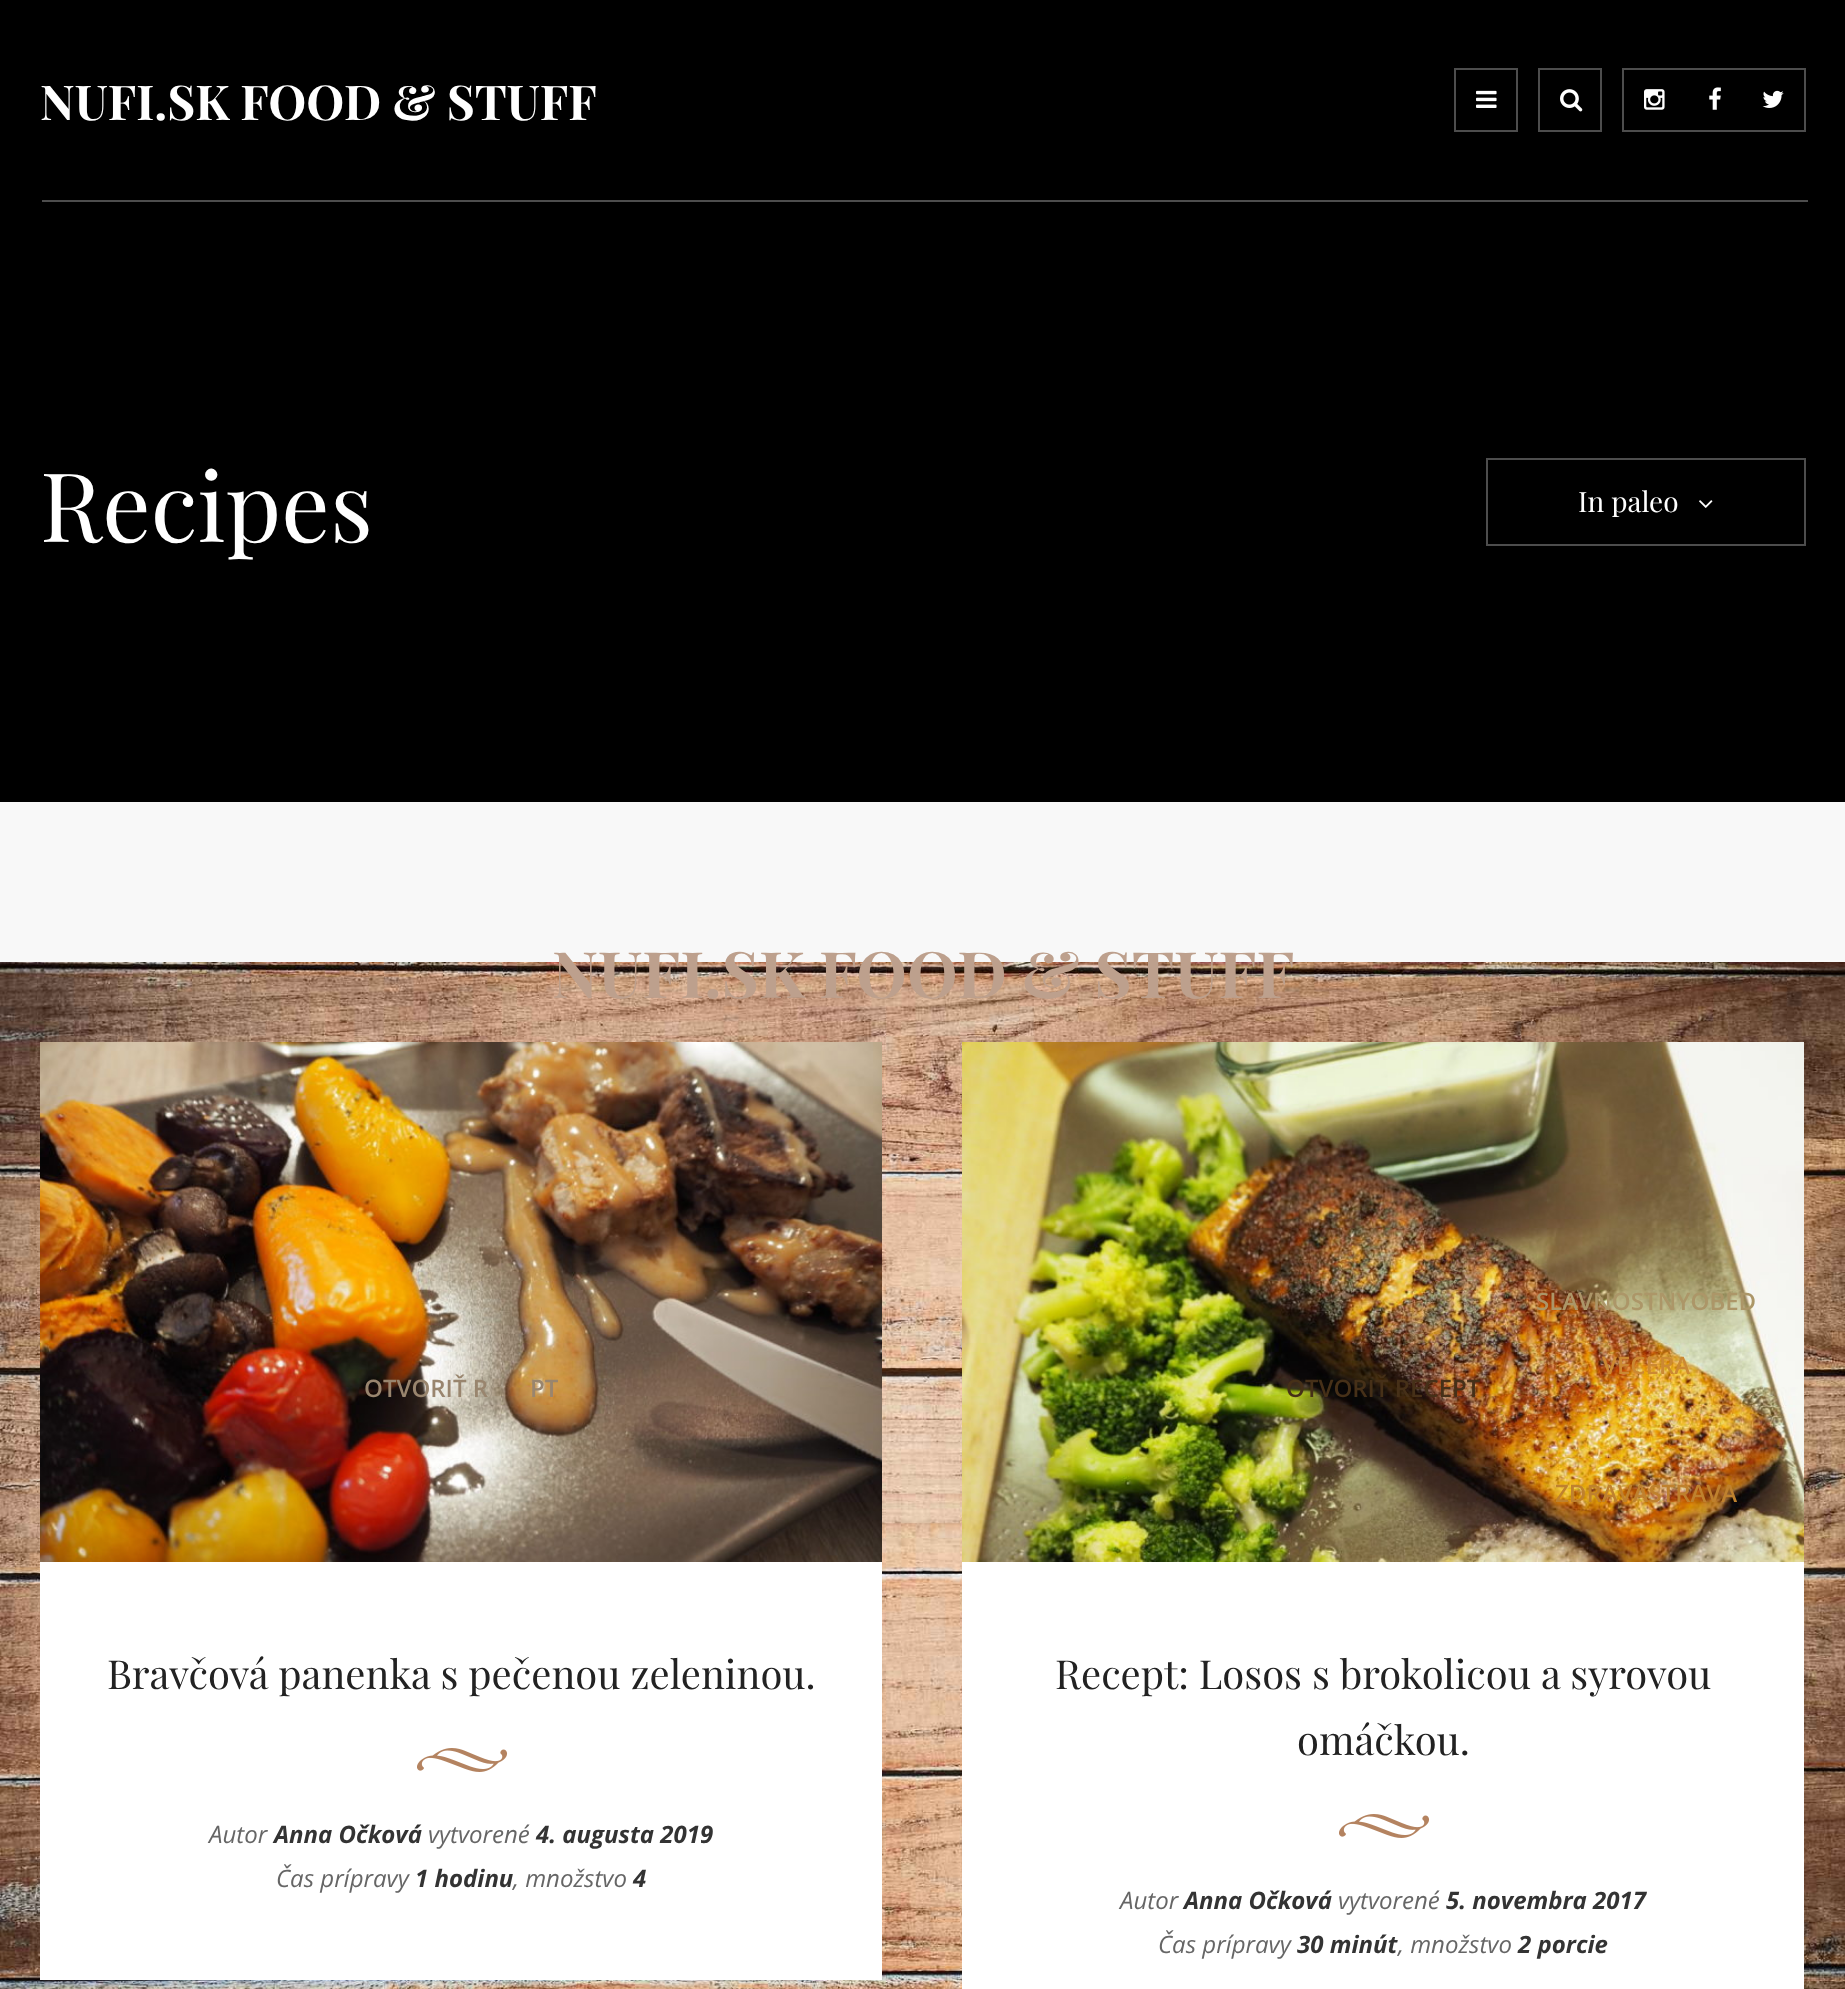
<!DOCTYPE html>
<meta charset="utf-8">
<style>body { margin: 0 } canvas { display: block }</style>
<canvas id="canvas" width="1845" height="1989"></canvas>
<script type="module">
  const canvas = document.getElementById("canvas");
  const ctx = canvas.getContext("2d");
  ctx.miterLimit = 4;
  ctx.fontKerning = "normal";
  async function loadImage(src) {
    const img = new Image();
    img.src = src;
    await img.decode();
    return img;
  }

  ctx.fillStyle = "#f8f8f8";
  ctx.fillRect(0, 0, 1845, 1989);
  ctx.fillStyle = "#000000";
  ctx.fillRect(0, 0, 1845, 802);
  ctx.font = "bold 48px Playfair Display";
  ctx.fillStyle = "#ffffff";
  ctx.fillText("NUFI.SK FOOD & STUFF", 40, 120);
  ctx.strokeStyle = "#4d4d4d";
  ctx.lineWidth = 2;
  ctx.strokeRect(1455, 69, 62, 62);
  ctx.drawImage(await loadImage("img1.png"), 1476, 90, 21, 18);
  ctx.strokeRect(1539, 69, 62, 62);
  ctx.drawImage(await loadImage("img2.png"), 1560, 89, 23, 23);
  ctx.strokeRect(1623, 69, 182, 62);
  ctx.drawImage(await loadImage("img3.png"), 1644, 89, 21, 21);
  ctx.drawImage(await loadImage("img4.png"), 1709, 87, 12, 23);
  ctx.drawImage(await loadImage("img5.png"), 1762, 90, 22, 18);
  ctx.fillStyle = "#4d4d4d";
  ctx.fillRect(42, 200, 1766, 2);
  ctx.font = "96px Playfair Display";
  ctx.fillStyle = "#ffffff";
  ctx.fillText("Recipes", 40, 542);
  ctx.strokeRect(1487, 459, 318, 86);
  ctx.font = "28px Playfair Display";
  ctx.fillText("In paleo", 1578, 512);
  ctx.drawImage(await loadImage("img6.png"), 1699, 500, 14, 8);
  ctx.drawImage(await loadImage("img7.png"), 0, 962, 1845, 1027);
  ctx.drawImage(await loadImage("img10.png"), 962, 1042, 842, 520);
  ctx.font = "600 24px Open Sans";
  ctx.fillStyle = "#ac9668";
  ctx.fillText("SLAVNOSTNYOBED", 1536, 1310);
  ctx.fillStyle = "#cc8932";
  ctx.fillText("VECERA", 1602, 1374);
  ctx.fillStyle = "#bf812e";
  ctx.fillText("ZDRAVASTRAVA", 1555, 1502);
  ctx.fillStyle = "#ffffff";
  ctx.fillRect(40, 1562, 842, 418);
  ctx.drawImage(await loadImage("img8.png"), 40, 1042, 842, 520);
  ctx.fillStyle = "#99856e";
  ctx.fillText("OTVORIŤ R", 364, 1397);
  ctx.fillText("PT", 530, 1397);
  ctx.font = "40px Playfair Display";
  ctx.fillStyle = "#222222";
  ctx.fillText("Bravčová panenka s pečenou zeleninou.", 107, 1689);
  ctx.drawImage(await loadImage("img9.png"), 417, 1748, 91, 24);
  ctx.font = "italic 24px Open Sans";
  ctx.fillStyle = "#666666";
  ctx.fillText("Autor", 209, 1843);
  ctx.font = "italic bold 24px Open Sans";
  ctx.fillStyle = "#333333";
  ctx.fillText("Anna Očková", 274, 1843);
  ctx.font = "italic 24px Open Sans";
  ctx.fillStyle = "#666666";
  ctx.fillText("vytvorené", 428, 1843);
  ctx.font = "italic bold 24px Open Sans";
  ctx.fillStyle = "#333333";
  ctx.fillText("4. augusta 2019", 536, 1843);
  ctx.font = "italic 24px Open Sans";
  ctx.fillStyle = "#666666";
  ctx.fillText("Čas prípravy", 276, 1887);
  ctx.font = "italic bold 24px Open Sans";
  ctx.fillStyle = "#333333";
  ctx.fillText("1 hodinu", 415, 1887);
  ctx.font = "italic 24px Open Sans";
  ctx.fillStyle = "#666666";
  ctx.fillText(", množstvo", 513, 1887);
  ctx.font = "italic bold 24px Open Sans";
  ctx.fillStyle = "#333333";
  ctx.fillText("4", 633, 1887);
  ctx.fillStyle = "#ffffff";
  ctx.fillRect(962, 1562, 842, 427);
  ctx.font = "600 24px Open Sans";
  ctx.fillStyle = "#463018";
  ctx.fillText("OTVORIŤ RECEPT", 1286, 1397);
  ctx.font = "40px Playfair Display";
  ctx.fillStyle = "#222222";
  ctx.fillText("Recept: Losos s brokolicou a syrovou", 1055, 1689);
  ctx.fillText("omáčkou.", 1297, 1755);
  ctx.drawImage(await loadImage("img9.png"), 1339, 1814, 91, 24);
  ctx.font = "italic 24px Open Sans";
  ctx.fillStyle = "#666666";
  ctx.fillText("Autor", 1120, 1909);
  ctx.font = "italic bold 24px Open Sans";
  ctx.fillStyle = "#333333";
  ctx.fillText("Anna Očková", 1184, 1909);
  ctx.font = "italic 24px Open Sans";
  ctx.fillStyle = "#666666";
  ctx.fillText("vytvorené", 1338, 1909);
  ctx.font = "italic bold 24px Open Sans";
  ctx.fillStyle = "#333333";
  ctx.fillText("5. novembra 2017", 1446, 1909);
  ctx.font = "italic 24px Open Sans";
  ctx.fillStyle = "#666666";
  ctx.fillText("Čas prípravy", 1158, 1953);
  ctx.font = "italic bold 24px Open Sans";
  ctx.fillStyle = "#333333";
  ctx.fillText("30 minút", 1297, 1953);
  ctx.font = "italic 24px Open Sans";
  ctx.fillStyle = "#666666";
  ctx.fillText(", množstvo", 1398, 1953);
  ctx.font = "italic bold 24px Open Sans";
  ctx.fillStyle = "#333333";
  ctx.fillText("2 porcie", 1518, 1953);
  ctx.font = "bold 64px Playfair Display";
  ctx.fillStyle = "#bda08d";
  ctx.fillText("NUFI.SK FOOD & STUFF", 552, 998);
</script>
